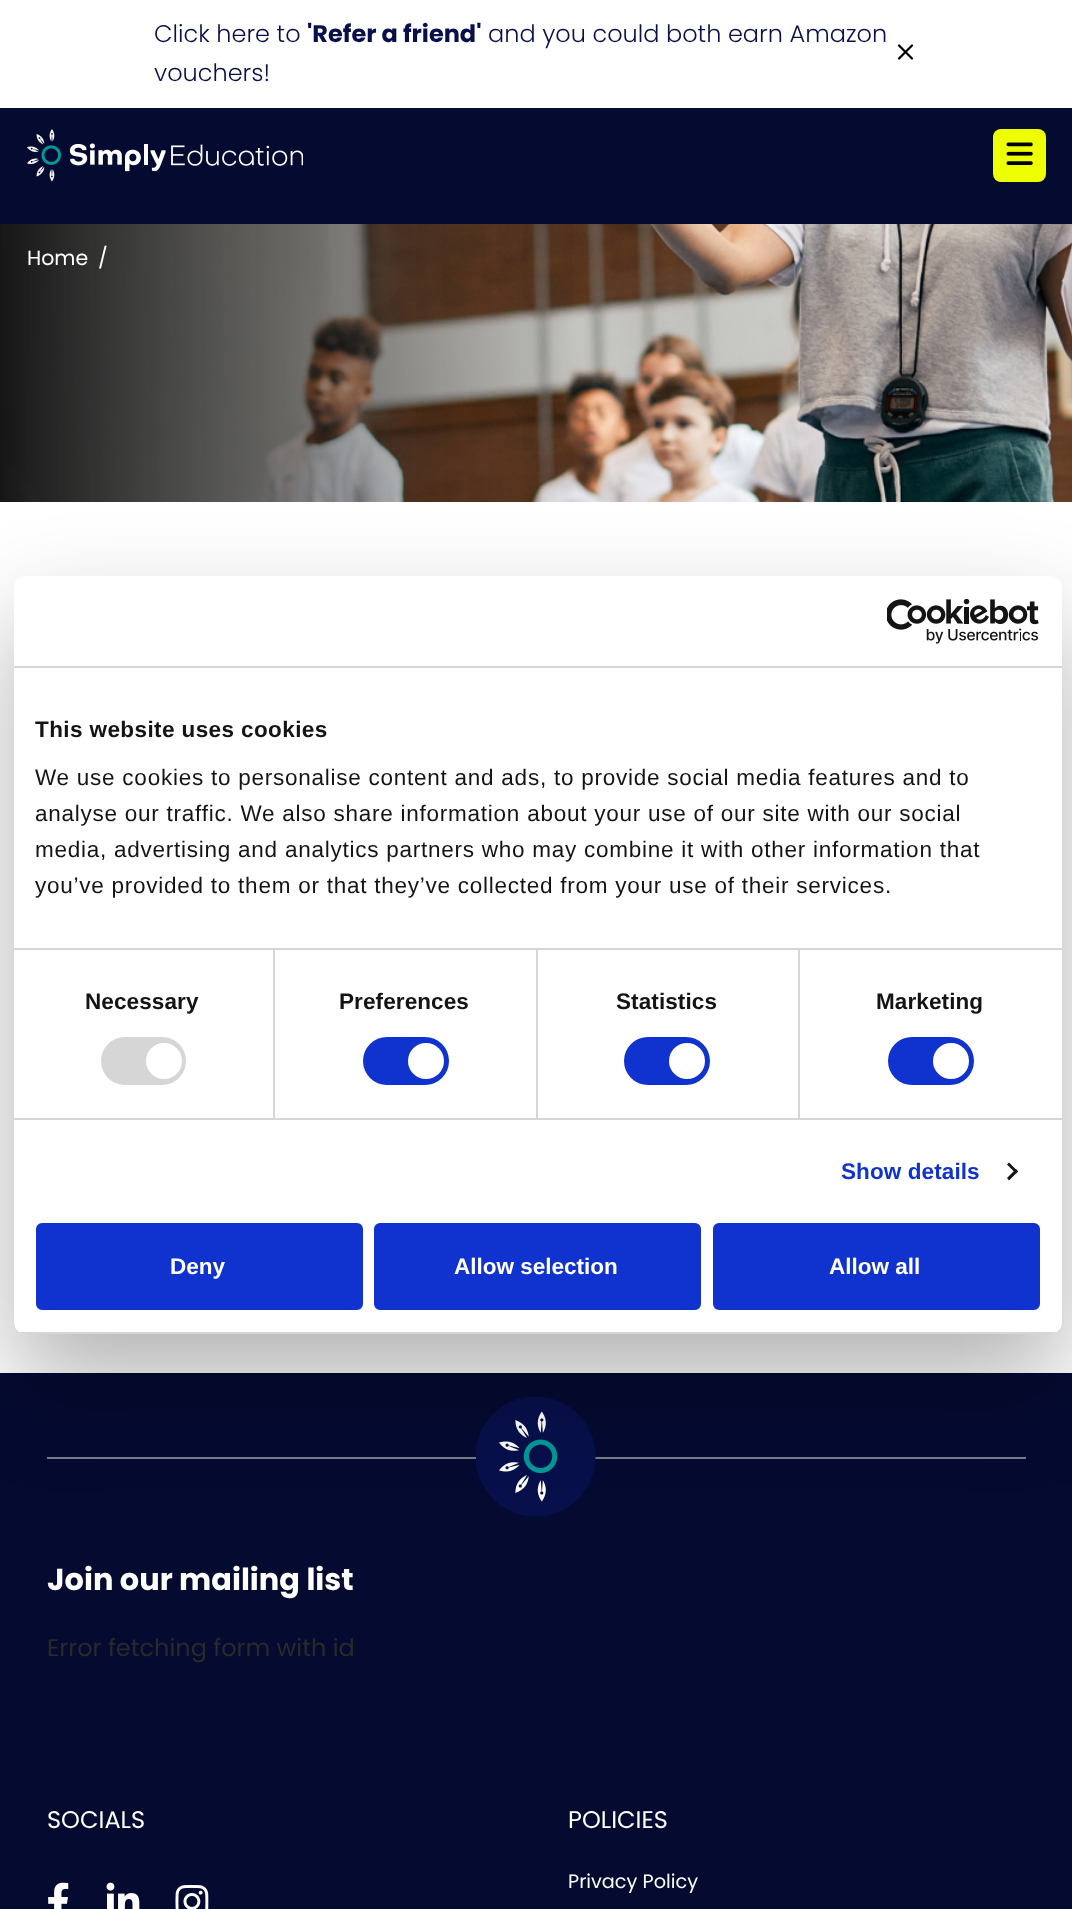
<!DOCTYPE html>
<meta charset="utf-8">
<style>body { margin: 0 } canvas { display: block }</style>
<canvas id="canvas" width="1072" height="1909"></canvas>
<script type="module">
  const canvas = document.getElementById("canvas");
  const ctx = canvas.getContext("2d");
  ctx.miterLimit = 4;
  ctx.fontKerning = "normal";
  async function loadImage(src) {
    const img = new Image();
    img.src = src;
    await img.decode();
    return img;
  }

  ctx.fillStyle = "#ffffff";
  ctx.fillRect(0, 0, 1072, 1909);
  ctx.fillStyle = "#050a31";
  ctx.fillRect(0, 108, 1072, 116);
  ctx.font = "300 24px Poppins";
  ctx.fillStyle = "#08104c";
  ctx.fillText("Click here to", 154, 42);
  ctx.font = "bold 24px Poppins";
  ctx.fillText("'Refer a friend'", 307, 42);
  ctx.font = "300 24px Poppins";
  ctx.fillText("and you could both earn Amazon", 488, 42);
  ctx.fillText("vouchers!", 154, 81);
  ctx.beginPath();
  ctx.moveTo(912, 45.5);
  ctx.lineTo(899, 58.5);
  ctx.moveTo(899, 45.5);
  ctx.lineTo(912, 58.5);
  ctx.strokeStyle = "#000000";
  ctx.lineWidth = 2.2;
  ctx.lineCap = "round";
  ctx.lineJoin = "round";
  ctx.stroke();
  ctx.drawImage(await loadImage("img1.png"), 27, 129, 276, 53);
  ctx.fillStyle = "#edff00";
  ctx.beginPath();
  ctx.roundRect(993, 129, 53, 53, 8);
  ctx.fill();
  ctx.drawImage(await loadImage("img2.png"), 1006, 142, 27, 23);
  ctx.drawImage(await loadImage("img3.png"), 0, 224, 1072, 278);
  ctx.font = "20.5px Poppins";
  ctx.fillStyle = "#ffffff";
  ctx.fillText("Home", 27, 265);
  ctx.fillText("/", 98, 265);
  ctx.fillStyle = "#050a31";
  ctx.fillRect(0, 1373, 1072, 536);
  ctx.fillStyle = "#787b8e";
  ctx.fillRect(47, 1457, 979, 2);
  ctx.drawImage(await loadImage("img4.png"), 476, 1397, 120, 120);
  ctx.font = "bold 30.4px Poppins";
  ctx.fillStyle = "#ffffff";
  ctx.fillText("Join our mailing list", 47, 1590);
  ctx.font = "24px Poppins";
  ctx.fillStyle = "#2a2a2a";
  ctx.fillText("Error fetching form with id", 47, 1656);
  ctx.fillStyle = "#ffffff";
  ctx.fillText("SOCIALS", 47, 1828);
  ctx.drawImage(await loadImage("img5.png"), 48, 1882, 21, 27);
  ctx.drawImage(await loadImage("img6.png"), 106, 1882, 34, 27);
  ctx.drawImage(await loadImage("img7.png"), 175, 1885, 34, 24);
  ctx.fillText("POLICIES", 568, 1828);
  ctx.font = "19.25px Poppins";
  ctx.fillText("Privacy Policy", 568, 1888);
  ctx.fillStyle = "rgba(0, 0, 0, 0.3)";
  ctx.filter = "blur(51px)";
  ctx.beginPath();
  ctx.roundRect(14, 624, 1048, 758, 12);
  ctx.fill();
  ctx.filter = "none";
  ctx.fillStyle = "#ffffff";
  ctx.beginPath();
  ctx.roundRect(14, 576, 1048, 758, 12);
  ctx.fill();
  ctx.fillStyle = "#d6d6d6";
  ctx.fillRect(14, 666, 1048, 2);
  ctx.drawImage(await loadImage("img8.png"), 887, 599, 152, 45);
  ctx.fillRect(14, 948, 1048, 2);
  ctx.letterSpacing = "0.4px";
  ctx.font = "bold 22.5px Liberation Sans";
  ctx.fillStyle = "#141414";
  ctx.fillText("This website uses cookies", 35, 737);
  ctx.letterSpacing = "0.75px";
  ctx.font = "22.5px Liberation Sans";
  ctx.fillText("We use cookies to personalise content and ads, to provide social media features and to", 35, 785);
  ctx.fillText("analyse our traffic. We also share information about your use of our site with our social", 35, 821);
  ctx.fillText("media, advertising and analytics partners who may combine it with other information that", 35, 857);
  ctx.fillText("you’ve provided to them or that they’ve collected from your use of their services.", 35, 893);
  ctx.fillStyle = "#d6d6d6";
  ctx.fillRect(14, 1118, 1048, 2);
  ctx.fillRect(273, 950, 2, 168);
  ctx.letterSpacing = "0.1px";
  ctx.font = "bold 22.5px Liberation Sans";
  ctx.fillStyle = "#141414";
  ctx.fillText("Necessary", 85, 1009);
  ctx.fillStyle = "#d6d6d6";
  ctx.beginPath();
  ctx.roundRect(101, 1037, 85, 48, 24);
  ctx.fill();
  ctx.fillStyle = "#ffffff";
  ctx.beginPath();
  ctx.arc(164, 1061, 18, 0, Math.PI * 2);
  ctx.fill();
  ctx.fillStyle = "#d6d6d6";
  ctx.fillRect(536, 950, 2, 168);
  ctx.fillStyle = "#141414";
  ctx.fillText("Preferences", 339, 1009);
  ctx.fillStyle = "#1032cf";
  ctx.beginPath();
  ctx.roundRect(363, 1037, 86, 48, 24);
  ctx.fill();
  ctx.fillStyle = "#ffffff";
  ctx.beginPath();
  ctx.arc(426, 1061, 18, 0, Math.PI * 2);
  ctx.fill();
  ctx.fillStyle = "#d6d6d6";
  ctx.fillRect(798, 950, 2, 168);
  ctx.fillStyle = "#141414";
  ctx.fillText("Statistics", 616, 1009);
  ctx.fillStyle = "#1032cf";
  ctx.beginPath();
  ctx.roundRect(624, 1037, 86, 48, 24);
  ctx.fill();
  ctx.fillStyle = "#ffffff";
  ctx.beginPath();
  ctx.arc(687, 1061, 18, 0, Math.PI * 2);
  ctx.fill();
  ctx.fillStyle = "#141414";
  ctx.fillText("Marketing", 876, 1009);
  ctx.fillStyle = "#1032cf";
  ctx.beginPath();
  ctx.roundRect(888, 1037, 86, 48, 24);
  ctx.fill();
  ctx.fillStyle = "#ffffff";
  ctx.beginPath();
  ctx.arc(951, 1061, 18, 0, Math.PI * 2);
  ctx.fill();
  ctx.fillStyle = "#1032cf";
  ctx.fillText("Show details", 841, 1179);
  ctx.fillStyle = "#141414";
  ctx.beginPath();
  ctx.moveTo(1009, 1162.5);
  ctx.lineTo(1018, 1171.5);
  ctx.lineTo(1016, 1173.5);
  ctx.lineTo(1007, 1164.5);
  ctx.closePath();
  ctx.fill();
  ctx.beginPath();
  ctx.moveTo(1016, 1169);
  ctx.lineTo(1018, 1171.5);
  ctx.lineTo(1009, 1180.5);
  ctx.lineTo(1007, 1178);
  ctx.closePath();
  ctx.fill();
  ctx.save();
  ctx.beginPath();
  ctx.roundRect(14, 576, 1048, 758, 12);
  ctx.clip();
  ctx.fillStyle = "#d6d6d6";
  ctx.fillRect(14, 1332, 1048, 2);
  ctx.restore();
  ctx.fillStyle = "#1032cf";
  ctx.beginPath();
  ctx.roundRect(37.5, 1224.5, 324, 84, 4.5);
  ctx.fill();
  ctx.strokeStyle = "#1032cf";
  ctx.lineWidth = 3;
  ctx.lineJoin = "miter";
  ctx.stroke();
  ctx.letterSpacing = "0px";
  ctx.fillStyle = "#ffffff";
  ctx.fillText("Deny", 170, 1274);
  ctx.fillStyle = "#1032cf";
  ctx.beginPath();
  ctx.roundRect(375.5, 1224.5, 324, 84, 4.5);
  ctx.fill();
  ctx.stroke();
  ctx.fillStyle = "#ffffff";
  ctx.fillText("Allow selection", 454, 1274);
  ctx.fillStyle = "#1032cf";
  ctx.beginPath();
  ctx.roundRect(714.5, 1224.5, 324, 84, 4.5);
  ctx.fill();
  ctx.stroke();
  ctx.fillStyle = "#ffffff";
  ctx.fillText("Allow all", 829, 1274);
</script>
